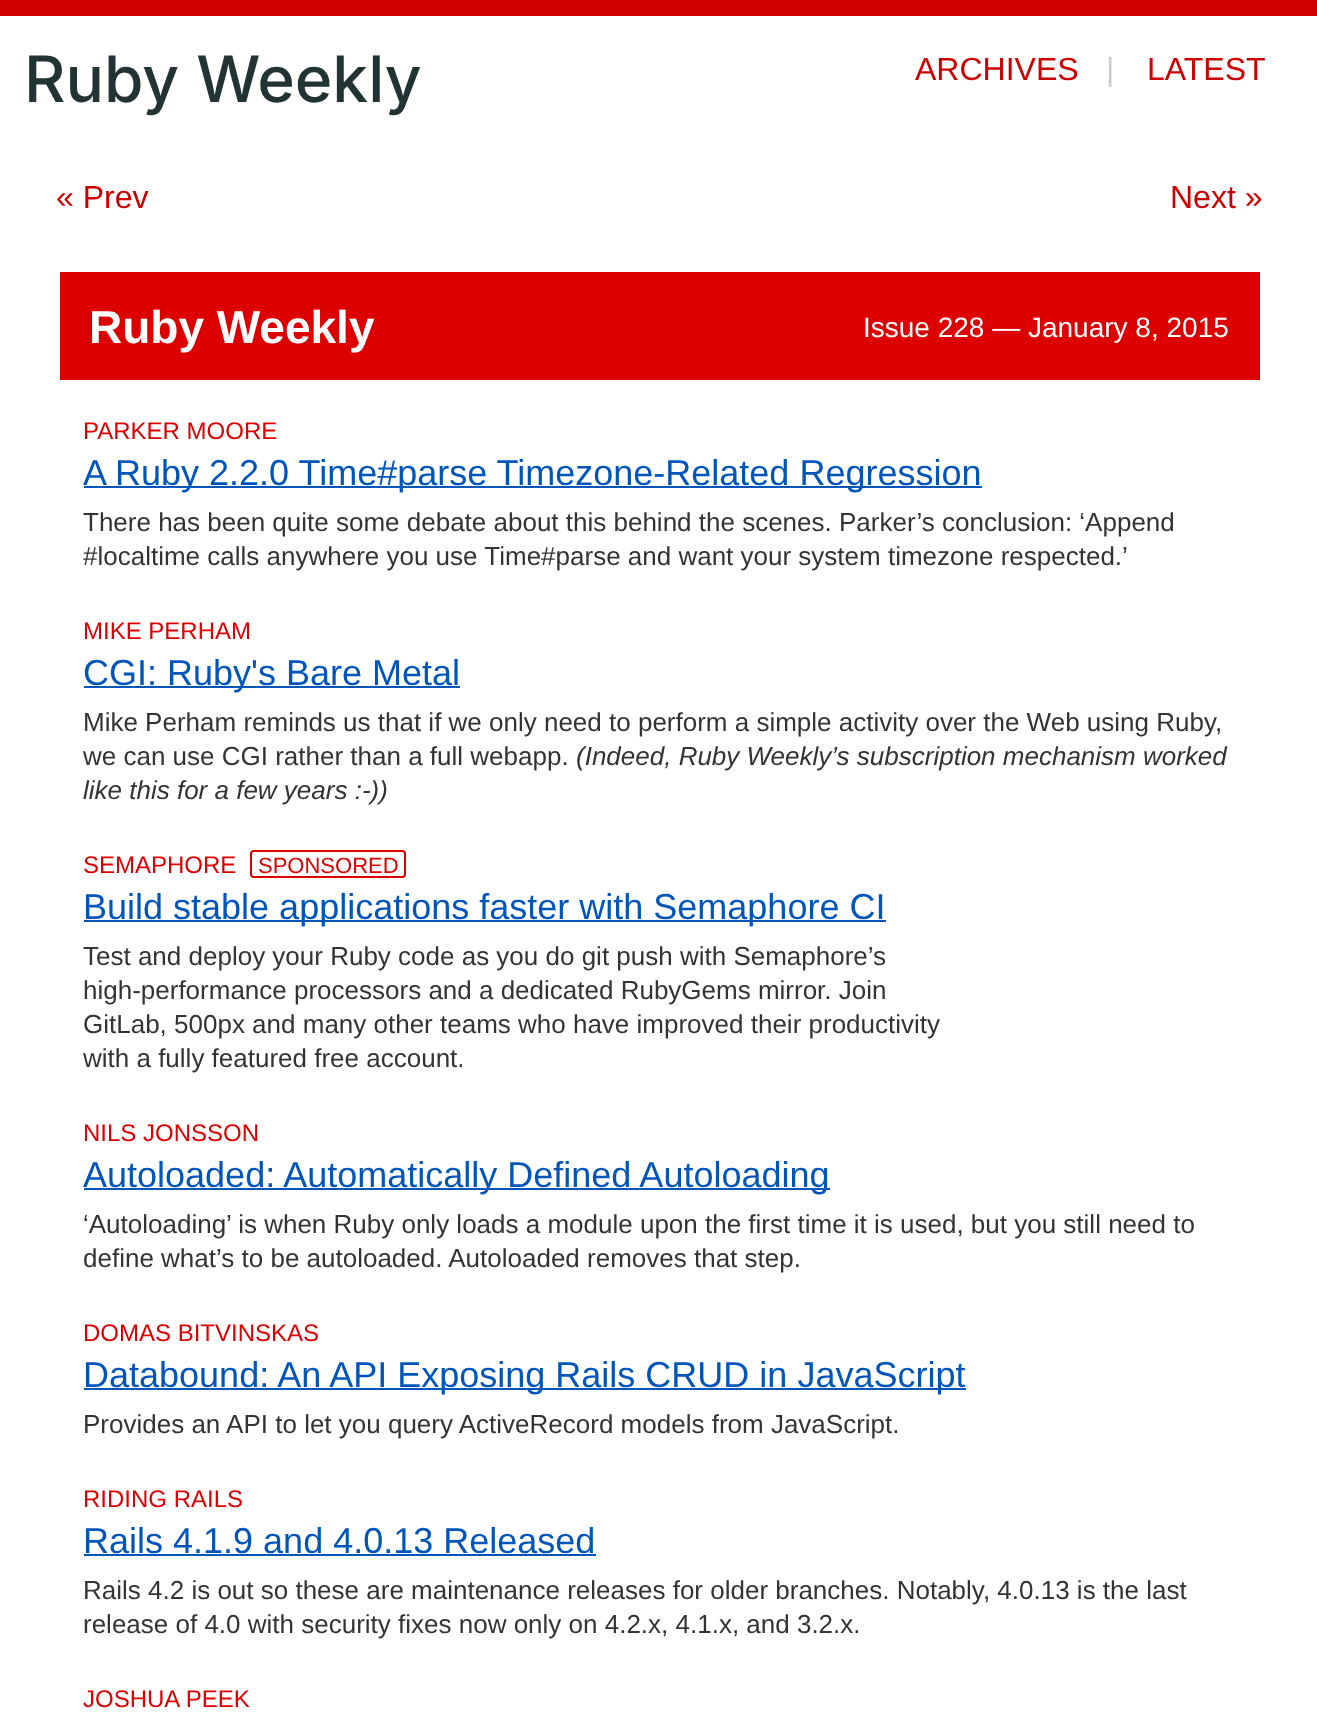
<!DOCTYPE html>
<meta charset="utf-8">
<style>body { margin: 0 } canvas { display: block }</style>
<canvas id="canvas" width="1317" height="1727"></canvas>
<script type="module">
  const canvas = document.getElementById("canvas");
  const ctx = canvas.getContext("2d");
  ctx.miterLimit = 4;
  ctx.fontKerning = "normal";

  ctx.fillStyle = "#ffffff";
  ctx.fillRect(0, 0, 1317, 1727);
  ctx.fillStyle = "#cc0000";
  ctx.fillRect(0, 0, 1317, 16);
  ctx.font = "500 64px Inter";
  ctx.fillStyle = "#223333";
  ctx.fillText("Ruby Weekly", 24, 102);
  ctx.font = "32px Liberation Sans";
  ctx.fillStyle = "#cc0000";
  ctx.fillText("ARCHIVES", 915, 80);
  ctx.fillStyle = "#cccccc";
  ctx.fillText("|", 1106, 80);
  ctx.fillStyle = "#cc0000";
  ctx.fillText("LATEST", 1147, 80);
  ctx.fillText("« Prev", 56, 208);
  ctx.fillText("Next »", 1170, 208);
  ctx.fillStyle = "#dd0000";
  ctx.fillRect(60, 272, 1200, 108);
  ctx.font = "bold 46px Liberation Sans";
  ctx.fillStyle = "#ffffff";
  ctx.fillText("Ruby Weekly", 89, 343);
  ctx.font = "28px Liberation Sans";
  ctx.fillText("Issue 228 — January 8, 2015", 863, 337);
  ctx.font = "24px Liberation Sans";
  ctx.fillStyle = "#dd0000";
  ctx.fillText("PARKER MOORE", 83, 439);
  ctx.fillStyle = "#0055bb";
  ctx.fillRect(84, 486, 898, 2);
  ctx.font = "36px Liberation Sans";
  ctx.fillText("A Ruby 2.2.0 Time#parse Timezone-Related Regression", 83, 485);
  ctx.font = "26px Liberation Sans";
  ctx.fillStyle = "#333333";
  ctx.fillText("There has been quite some debate about this behind the scenes. Parker’s conclusion: ‘Append", 83, 531);
  ctx.fillText("#localtime calls anywhere you use Time#parse and want your system timezone respected.’", 83, 565);
  ctx.font = "24px Liberation Sans";
  ctx.fillStyle = "#dd0000";
  ctx.fillText("MIKE PERHAM", 83, 639);
  ctx.fillStyle = "#0055bb";
  ctx.fillRect(84, 686, 376, 2);
  ctx.font = "36px Liberation Sans";
  ctx.fillText("CGI: Ruby's Bare Metal", 83, 685);
  ctx.font = "26px Liberation Sans";
  ctx.fillStyle = "#333333";
  ctx.fillText("Mike Perham reminds us that if we only need to perform a simple activity over the Web using Ruby,", 83, 731);
  ctx.fillText("we can use CGI rather than a full webapp.", 83, 765);
  ctx.font = "italic 26px Liberation Sans";
  ctx.fillText("(Indeed, Ruby Weekly’s subscription mechanism worked", 576, 765);
  ctx.fillText("like this for a few years :-))", 83, 799);
  ctx.font = "24px Liberation Sans";
  ctx.fillStyle = "#dd0000";
  ctx.fillText("SEMAPHORE", 83, 873);
  ctx.beginPath();
  ctx.roundRect(251, 851, 154, 26, 3);
  ctx.strokeStyle = "#dd0000";
  ctx.lineWidth = 2;
  ctx.stroke();
  ctx.font = "22px Liberation Sans";
  ctx.fillText("SPONSORED", 258, 873);
  ctx.fillStyle = "#0055bb";
  ctx.fillRect(84, 920, 802, 2);
  ctx.font = "36px Liberation Sans";
  ctx.fillText("Build stable applications faster with Semaphore CI", 83, 919);
  ctx.font = "26px Liberation Sans";
  ctx.fillStyle = "#333333";
  ctx.fillText("Test and deploy your Ruby code as you do git push with Semaphore’s", 83, 965);
  ctx.fillText("high-performance processors and a dedicated RubyGems mirror. Join", 83, 999);
  ctx.fillText("GitLab, 500px and many other teams who have improved their productivity", 83, 1033);
  ctx.fillText("with a fully featured free account.", 83, 1067);
  ctx.font = "24px Liberation Sans";
  ctx.fillStyle = "#dd0000";
  ctx.fillText("NILS JONSSON", 83, 1141);
  ctx.fillStyle = "#0055bb";
  ctx.fillRect(84, 1188, 746, 2);
  ctx.font = "36px Liberation Sans";
  ctx.fillText("Autoloaded: Automatically Defined Autoloading", 83, 1187);
  ctx.font = "26px Liberation Sans";
  ctx.fillStyle = "#333333";
  ctx.fillText("‘Autoloading’ is when Ruby only loads a module upon the first time it is used, but you still need to", 83, 1233);
  ctx.fillText("define what’s to be autoloaded. Autoloaded removes that step.", 83, 1267);
  ctx.font = "24px Liberation Sans";
  ctx.fillStyle = "#dd0000";
  ctx.fillText("DOMAS BITVINSKAS", 83, 1341);
  ctx.fillStyle = "#0055bb";
  ctx.fillRect(84, 1388, 882, 2);
  ctx.font = "36px Liberation Sans";
  ctx.fillText("Databound: An API Exposing Rails CRUD in JavaScript", 83, 1387);
  ctx.font = "26px Liberation Sans";
  ctx.fillStyle = "#333333";
  ctx.fillText("Provides an API to let you query ActiveRecord models from JavaScript.", 83, 1433);
  ctx.font = "24px Liberation Sans";
  ctx.fillStyle = "#dd0000";
  ctx.fillText("RIDING RAILS", 83, 1507);
  ctx.font = "36px Liberation Sans";
  ctx.fillStyle = "#0055bb";
  ctx.fillText("Rails 4.1.9 and 4.0.13 Released", 83, 1553);
  ctx.fillRect(84, 1554, 512, 2);
  ctx.font = "26px Liberation Sans";
  ctx.fillStyle = "#333333";
  ctx.fillText("Rails 4.2 is out so these are maintenance releases for older branches. Notably, 4.0.13 is the last", 83, 1599);
  ctx.fillText("release of 4.0 with security fixes now only on 4.2.x, 4.1.x, and 3.2.x.", 83, 1633);
  ctx.font = "24px Liberation Sans";
  ctx.fillStyle = "#dd0000";
  ctx.fillText("JOSHUA PEEK", 83, 1707);
</script>
